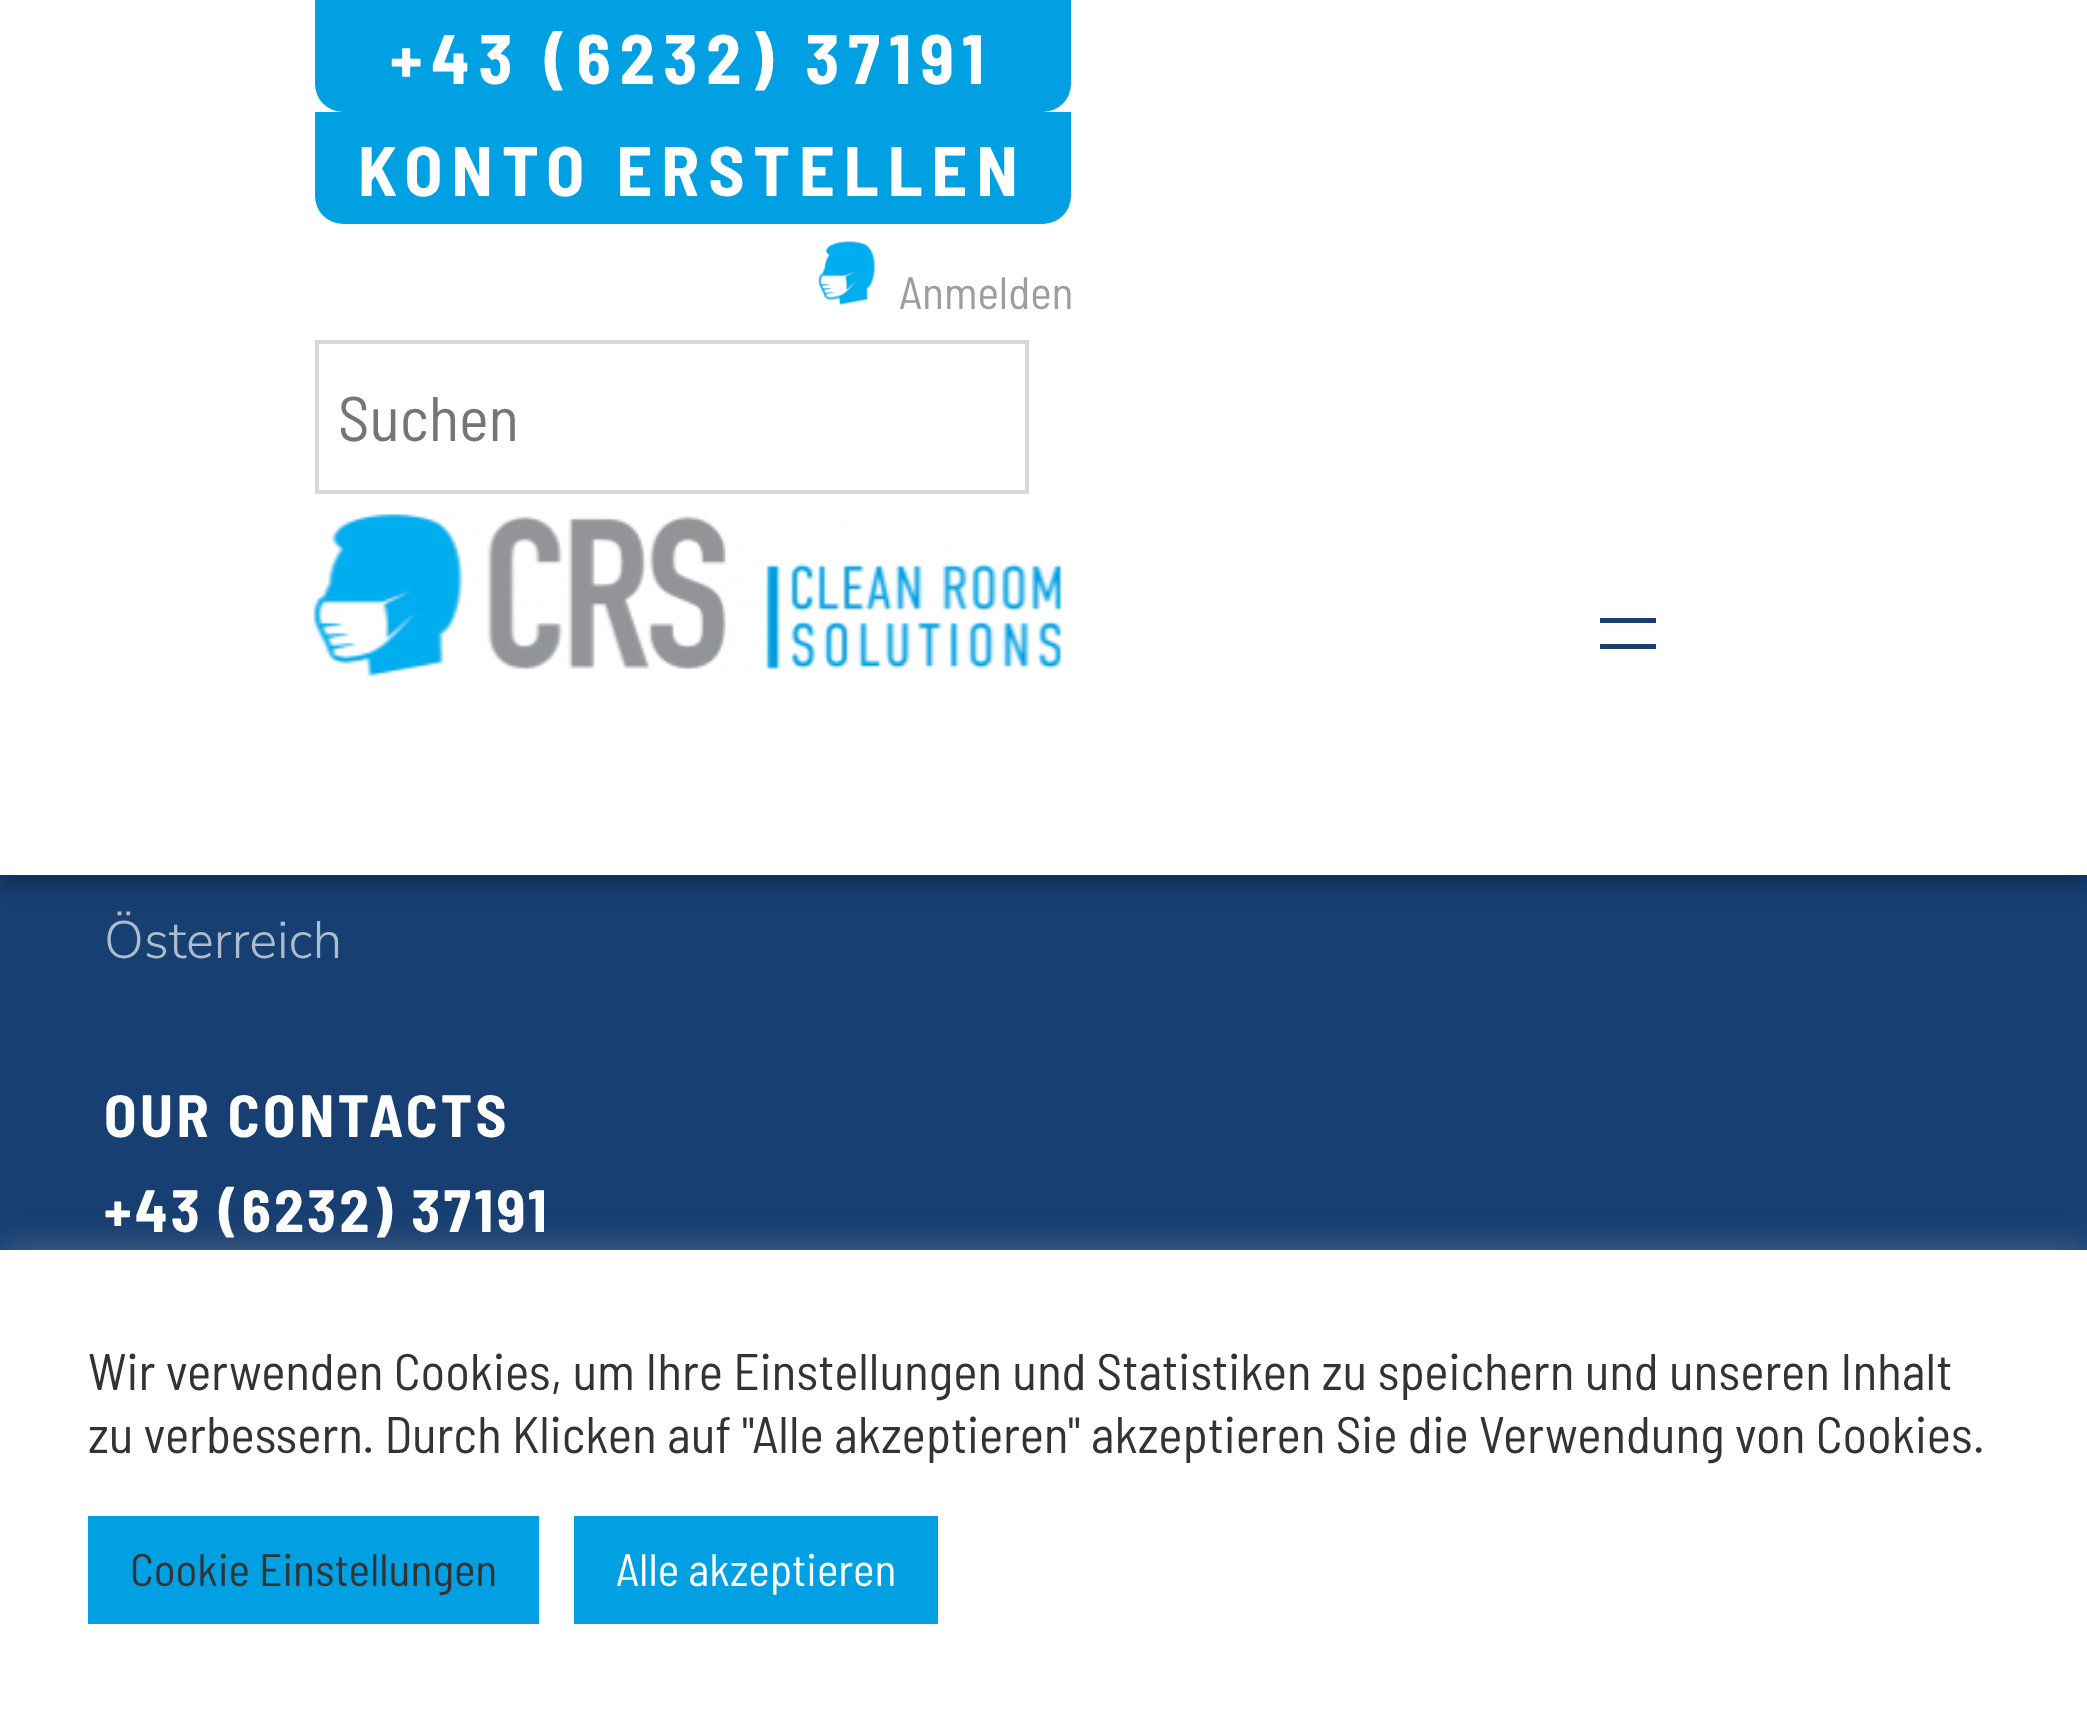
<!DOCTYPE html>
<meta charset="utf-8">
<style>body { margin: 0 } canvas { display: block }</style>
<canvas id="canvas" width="2087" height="1728"></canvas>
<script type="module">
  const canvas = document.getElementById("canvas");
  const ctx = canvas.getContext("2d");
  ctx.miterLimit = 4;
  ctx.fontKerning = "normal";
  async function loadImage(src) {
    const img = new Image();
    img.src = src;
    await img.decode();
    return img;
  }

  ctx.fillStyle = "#173f72";
  ctx.fillRect(0, 0, 2087, 1728);
  ctx.fillStyle = "rgba(0, 0, 0, 0.25)";
  ctx.filter = "blur(10.5px)";
  ctx.beginPath();
  ctx.rect(0, 11, 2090, 875);
  ctx.fill();
  ctx.filter = "none";
  ctx.fillStyle = "#ffffff";
  ctx.fillRect(0, 0, 2087, 875);
  ctx.fillStyle = "#00a0e3";
  ctx.beginPath();
  ctx.roundRect(315, 0, 756, 112, [0, 0, 28, 28]);
  ctx.fill();
  ctx.letterSpacing = "9px";
  ctx.font = "bold 70px Barlow Semi Condensed";
  ctx.fillStyle = "#ffffff";
  ctx.fillText("+43 (6232) 37191", 390, 84);
  ctx.fillStyle = "#00a0e3";
  ctx.beginPath();
  ctx.roundRect(315, 112, 756, 112, [0, 0, 28, 28]);
  ctx.fill();
  ctx.fillStyle = "#ffffff";
  ctx.fillText("KONTO ERSTELLEN", 358, 196);
  ctx.drawImage(await loadImage("img1.png"), 818, 241, 57, 64);
  ctx.letterSpacing = "0px";
  ctx.font = "45.5px Barlow Semi Condensed";
  ctx.fillStyle = "#9e9d9d";
  ctx.fillText("Anmelden", 899, 309);
  ctx.strokeStyle = "#d8d8d8";
  ctx.lineWidth = 4;
  ctx.strokeRect(317, 342, 710, 150);
  ctx.font = "63px Barlow Semi Condensed";
  ctx.fillStyle = "#757575";
  ctx.fillText("Suchen", 338, 441);
  ctx.drawImage(await loadImage("img2.png"), 313, 514, 748, 163);
  ctx.fillStyle = "#173f72";
  ctx.fillRect(1600, 618, 56, 5);
  ctx.fillRect(1600, 644, 56, 5);
  ctx.font = "300 52.5px Nunito Sans";
  ctx.fillStyle = "#aebcce";
  ctx.fillText("Österreich", 104, 958);
  ctx.letterSpacing = "3.5px";
  ctx.font = "bold 59.5px Barlow Semi Condensed";
  ctx.fillStyle = "#ffffff";
  ctx.fillText("OUR CONTACTS", 104, 1137);
  ctx.fillText("+43 (6232) 37191", 104, 1232);
  ctx.fillStyle = "rgba(172, 171, 171, 0.3)";
  ctx.filter = "blur(17.5px)";
  ctx.beginPath();
  ctx.rect(0, 1246, 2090, 480);
  ctx.fill();
  ctx.filter = "none";
  ctx.fillStyle = "#ffffff";
  ctx.fillRect(0, 1250, 2087, 478);
  ctx.letterSpacing = "0px";
  ctx.font = "51.35px Barlow Semi Condensed";
  ctx.fillStyle = "#333333";
  ctx.fillText("Wir verwenden Cookies, um Ihre Einstellungen und Statistiken zu speichern und unseren Inhalt", 88, 1390);
  ctx.fillText("zu verbessern. Durch Klicken auf \"Alle akzeptieren\" akzeptieren Sie die Verwendung von Cookies.", 88, 1453);
  ctx.fillStyle = "#00a0e3";
  ctx.fillRect(88, 1516, 451, 108);
  ctx.font = "45.5px Barlow Semi Condensed";
  ctx.fillStyle = "#333333";
  ctx.fillText("Cookie Einstellungen", 130, 1586);
  ctx.fillStyle = "#00a0e3";
  ctx.fillRect(574, 1516, 364, 108);
  ctx.fillStyle = "#ffffff";
  ctx.fillText("Alle akzeptieren", 616, 1586);
</script>
